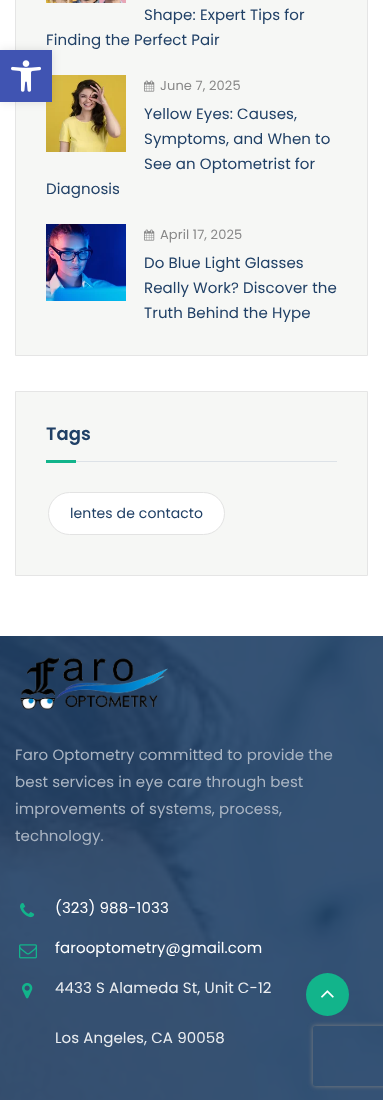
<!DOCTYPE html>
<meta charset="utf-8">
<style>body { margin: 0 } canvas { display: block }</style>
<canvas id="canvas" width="383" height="1100"></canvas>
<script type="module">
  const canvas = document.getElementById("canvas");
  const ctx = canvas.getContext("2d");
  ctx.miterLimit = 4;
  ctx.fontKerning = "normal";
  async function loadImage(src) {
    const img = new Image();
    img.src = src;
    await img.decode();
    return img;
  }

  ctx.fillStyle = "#ffffff";
  ctx.fillRect(0, 0, 383, 1100);
  ctx.fillStyle = "#f6f7f5";
  ctx.beginPath();
  ctx.rect(15.5, -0.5, 352, 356);
  ctx.fill();
  ctx.strokeStyle = "#e5e5e5";
  ctx.stroke();
  ctx.drawImage(await loadImage("img1.png"), 46, 0, 80, 3);
  ctx.letterSpacing = "0.1px";
  ctx.font = "15px Poppins";
  ctx.fillStyle = "#204066";
  ctx.fillText("Shape: Expert Tips for", 144, 20);
  ctx.fillText("Finding the Perfect Pair", 46, 45);
  ctx.drawImage(await loadImage("img2.png"), 46, 75, 80, 77);
  ctx.drawImage(await loadImage("img3.png"), 144, 80, 11, 12);
  ctx.font = "13px Poppins";
  ctx.fillStyle = "#888888";
  ctx.fillText("June 7, 2025", 160, 90);
  ctx.font = "15px Poppins";
  ctx.fillStyle = "#204066";
  ctx.fillText("Yellow Eyes: Causes,", 144, 119);
  ctx.fillText("Symptoms, and When to", 144, 144);
  ctx.fillText("See an Optometrist for", 144, 169);
  ctx.fillText("Diagnosis", 46, 194);
  ctx.drawImage(await loadImage("img4.png"), 46, 224, 80, 77);
  ctx.drawImage(await loadImage("img3.png"), 144, 229, 11, 12);
  ctx.font = "13px Poppins";
  ctx.fillStyle = "#888888";
  ctx.fillText("April 17, 2025", 160, 239);
  ctx.font = "15px Poppins";
  ctx.fillStyle = "#204066";
  ctx.fillText("Do Blue Light Glasses", 144, 268);
  ctx.fillText("Really Work? Discover the", 144, 293);
  ctx.fillText("Truth Behind the Hype", 144, 318);
  ctx.fillStyle = "#f6f7f5";
  ctx.beginPath();
  ctx.rect(15.5, 391.5, 352, 184);
  ctx.fill();
  ctx.stroke();
  ctx.fillStyle = "#dde2e7";
  ctx.fillRect(76, 461, 261, 1);
  ctx.font = "600 18px Poppins";
  ctx.fillStyle = "#204066";
  ctx.fillText("Tags", 46, 440);
  ctx.fillStyle = "#12b48b";
  ctx.fillRect(46, 460, 30, 3);
  ctx.fillStyle = "#ffffff";
  ctx.beginPath();
  ctx.roundRect(48.5, 492.5, 176, 42, 21);
  ctx.fill();
  ctx.strokeStyle = "#e3e3e3";
  ctx.stroke();
  ctx.font = "14px Poppins";
  ctx.fillStyle = "#204066";
  ctx.fillText("lentes de contacto", 70, 518);
  ctx.drawImage(await loadImage("img5.png"), 0, 636, 383, 464);
  ctx.drawImage(await loadImage("img6.png"), 20, 657, 148, 53);
  ctx.font = "15px Poppins";
  ctx.fillStyle = "#aab5c3";
  ctx.fillText("Faro Optometry committed to provide the", 15, 760);
  ctx.fillText("best services in eye care through best", 15, 787);
  ctx.fillText("improvements of systems, process,", 15, 814);
  ctx.fillText("technology.", 15, 841);
  ctx.drawImage(await loadImage("img7.png"), 20, 903, 15, 15);
  ctx.fillStyle = "#ffffff";
  ctx.fillText("(323) 988-1033", 55, 913);
  ctx.drawImage(await loadImage("img8.png"), 19, 944, 18, 15);
  ctx.fillText("farooptometry@gmail.com", 55, 953);
  ctx.drawImage(await loadImage("img9.png"), 22, 983, 11, 16);
  ctx.fillStyle = "#ebeef1";
  ctx.fillText("4433 S Alameda St, Unit C-12", 55, 993);
  ctx.fillText("Los Angeles, CA 90058", 55, 1043);
  ctx.fillStyle = "rgba(0, 0, 0, 0.1)";
  ctx.filter = "blur(5px)";
  ctx.beginPath();
  ctx.rect(0, 50, 52, 52);
  ctx.fill();
  ctx.filter = "none";
  ctx.fillStyle = "#4054b2";
  ctx.fillRect(0, 50, 52, 52);
  ctx.drawImage(await loadImage("img10.png"), 11, 60, 30, 32);
  ctx.fillStyle = "#12b48b";
  ctx.beginPath();
  ctx.arc(327.5, 994.5, 21.5, 0, Math.PI * 2);
  ctx.fill();
  ctx.drawImage(await loadImage("img11.png"), 321, 990, 13, 8);
  ctx.save();
  ctx.beginPath();
  ctx.moveTo(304, 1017);
  ctx.lineTo(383, 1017);
  ctx.lineTo(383, 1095);
  ctx.lineTo(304, 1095);
  ctx.closePath();
  ctx.moveTo(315, 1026);
  ctx.lineTo(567, 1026);
  ctx.bezierCurveTo(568, 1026, 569, 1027, 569, 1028);
  ctx.lineTo(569, 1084);
  ctx.bezierCurveTo(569, 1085, 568, 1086, 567, 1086);
  ctx.lineTo(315, 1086);
  ctx.bezierCurveTo(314, 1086, 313, 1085, 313, 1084);
  ctx.lineTo(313, 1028);
  ctx.bezierCurveTo(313, 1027, 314, 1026, 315, 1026);
  ctx.closePath();
  ctx.clip("evenodd");
  ctx.fillStyle = "#808080";
  ctx.filter = "blur(2.5px)";
  ctx.beginPath();
  ctx.roundRect(313, 1026, 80, 60, 2);
  ctx.fill();
  ctx.filter = "none";
  ctx.restore();
</script>
